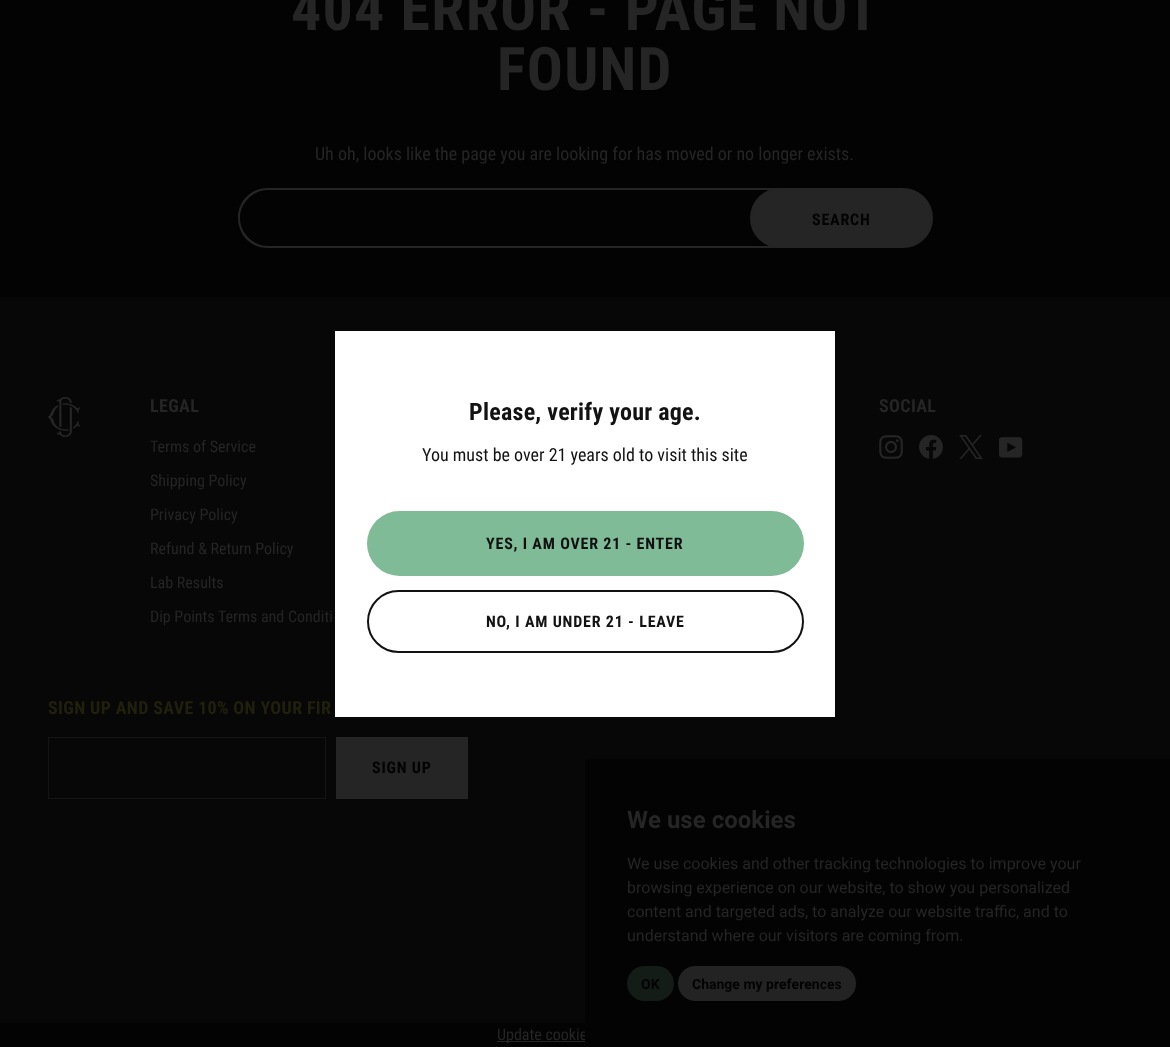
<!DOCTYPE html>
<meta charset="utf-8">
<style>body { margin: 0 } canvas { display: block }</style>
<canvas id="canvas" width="1170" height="1047"></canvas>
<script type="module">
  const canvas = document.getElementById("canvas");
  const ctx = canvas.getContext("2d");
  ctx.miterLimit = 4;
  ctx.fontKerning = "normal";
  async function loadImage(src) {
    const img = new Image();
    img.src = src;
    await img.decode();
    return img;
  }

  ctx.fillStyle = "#030303";
  ctx.fillRect(0, 0, 1170, 1047);
  ctx.letterSpacing = "1.2px";
  ctx.font = "bold 60px Roboto Condensed";
  ctx.fillStyle = "#252525";
  ctx.fillText("404 ERROR - PAGE NOT", 291, 30);
  ctx.fillText("FOUND", 497, 90);
  ctx.letterSpacing = "0px";
  ctx.font = "18px Roboto Condensed";
  ctx.fillText("Uh oh, looks like the page you are looking for has moved or no longer exists.", 315, 160);
  ctx.beginPath();
  ctx.moveTo(268, 188);
  ctx.lineTo(784, 188);
  ctx.bezierCurveTo(785, 188, 786, 189, 786, 190);
  ctx.lineTo(786, 246);
  ctx.bezierCurveTo(786, 247, 785, 248, 784, 248);
  ctx.lineTo(268, 248);
  ctx.bezierCurveTo(251, 248, 238, 235, 238, 218);
  ctx.bezierCurveTo(238, 201, 251, 188, 268, 188);
  ctx.closePath();
  ctx.moveTo(268, 190);
  ctx.lineTo(786, 190);
  ctx.lineTo(786, 246);
  ctx.lineTo(268, 246);
  ctx.bezierCurveTo(253, 246, 240, 233, 240, 218);
  ctx.bezierCurveTo(240, 203, 253, 190, 268, 190);
  ctx.closePath();
  ctx.fill("evenodd");
  ctx.beginPath();
  ctx.roundRect(751, 189, 181, 58, 29);
  ctx.fill();
  ctx.strokeStyle = "#252525";
  ctx.lineWidth = 2;
  ctx.stroke();
  ctx.letterSpacing = "0.8px";
  ctx.font = "bold 16px Roboto Condensed";
  ctx.fillStyle = "#030303";
  ctx.fillText("SEARCH", 812, 225);
  ctx.fillStyle = "#070707";
  ctx.fillRect(0, 297, 1170, 726);
  ctx.drawImage(await loadImage("img1.png"), 48, 397, 32, 40);
  ctx.letterSpacing = "0.35px";
  ctx.font = "bold 18px Roboto Condensed";
  ctx.fillStyle = "#252525";
  ctx.fillText("LEGAL", 150, 412);
  ctx.letterSpacing = "0px";
  ctx.font = "16px Roboto Condensed";
  ctx.fillText("Terms of Service", 150, 452);
  ctx.fillText("Shipping Policy", 150, 486);
  ctx.fillText("Privacy Policy", 150, 520);
  ctx.fillText("Refund & Return Policy", 150, 554);
  ctx.fillText("Lab Results", 150, 588);
  ctx.fillText("Dip Points Terms and Conditi", 150, 622);
  ctx.letterSpacing = "0.35px";
  ctx.font = "bold 18px Roboto Condensed";
  ctx.fillText("SOCIAL", 879, 412);
  ctx.drawImage(await loadImage("img2.png"), 879, 435, 24, 24);
  ctx.drawImage(await loadImage("img3.png"), 919, 435, 24, 24);
  ctx.drawImage(await loadImage("img4.png"), 959, 435, 24, 24);
  ctx.drawImage(await loadImage("img5.png"), 999, 437, 24, 21);
  ctx.fillStyle = "#21200d";
  ctx.fillText("SIGN UP AND SAVE 10% ON YOUR FIR", 48, 714);
  ctx.strokeStyle = "#151515";
  ctx.lineWidth = 1;
  ctx.strokeRect(48.5, 737.5, 277, 61);
  ctx.fillStyle = "#252525";
  ctx.fillRect(336, 737, 132, 62);
  ctx.letterSpacing = "0.8px";
  ctx.font = "bold 16px Roboto Condensed";
  ctx.fillStyle = "#030303";
  ctx.fillText("SIGN UP", 372, 773);
  ctx.fillStyle = "#ffffff";
  ctx.fillRect(335, 331, 500, 386);
  ctx.letterSpacing = "0.25px";
  ctx.font = "bold 24px Roboto Condensed";
  ctx.fillStyle = "#121212";
  ctx.fillText("Please, verify your age.", 469, 420);
  ctx.letterSpacing = "0px";
  ctx.font = "18px Roboto Condensed";
  ctx.fillText("You must be over 21 years old to visit this site", 422, 461);
  ctx.fillStyle = "#80bb97";
  ctx.beginPath();
  ctx.roundRect(367, 511, 437, 65, 32.5);
  ctx.fill();
  ctx.letterSpacing = "0.8px";
  ctx.font = "bold 16px Roboto Condensed";
  ctx.fillStyle = "#121212";
  ctx.fillText("YES, I AM OVER 21 - ENTER", 486, 549);
  ctx.beginPath();
  ctx.roundRect(368, 591, 435, 61, 30.5);
  ctx.strokeStyle = "#121212";
  ctx.lineWidth = 2;
  ctx.stroke();
  ctx.fillText("NO, I AM UNDER 21 - LEAVE", 486, 627);
  ctx.fillStyle = "#252525";
  ctx.fillRect(497, 1041, 88, 1);
  ctx.letterSpacing = "0px";
  ctx.font = "16px Roboto Condensed";
  ctx.fillText("Update cookie", 497, 1040);
  ctx.fillStyle = "#030303";
  ctx.fillRect(585, 759, 585, 281);
  ctx.font = "bold 24px Roboto";
  ctx.fillStyle = "#252525";
  ctx.fillText("We use cookies", 627, 828);
  ctx.font = "16px Roboto";
  ctx.fillText("We use cookies and other tracking technologies to improve your", 627, 869);
  ctx.fillText("browsing experience on our website, to show you personalized", 627, 893);
  ctx.fillText("content and targeted ads, to analyze our website traffic, and to", 627, 917);
  ctx.fillText("understand where our visitors are coming from.", 627, 941);
  ctx.fillStyle = "#131c17";
  ctx.beginPath();
  ctx.roundRect(627, 966, 47, 35, 17.5);
  ctx.fill();
  ctx.font = "bold 14px Roboto";
  ctx.fillStyle = "#030303";
  ctx.fillText("OK", 641, 989);
  ctx.fillStyle = "#232323";
  ctx.beginPath();
  ctx.roundRect(677.5, 965.5, 179, 36, 18);
  ctx.fill();
  ctx.strokeStyle = "#030303";
  ctx.lineWidth = 1;
  ctx.stroke();
  ctx.fillStyle = "#030303";
  ctx.fillText("Change my preferences", 692, 989);
</script>
